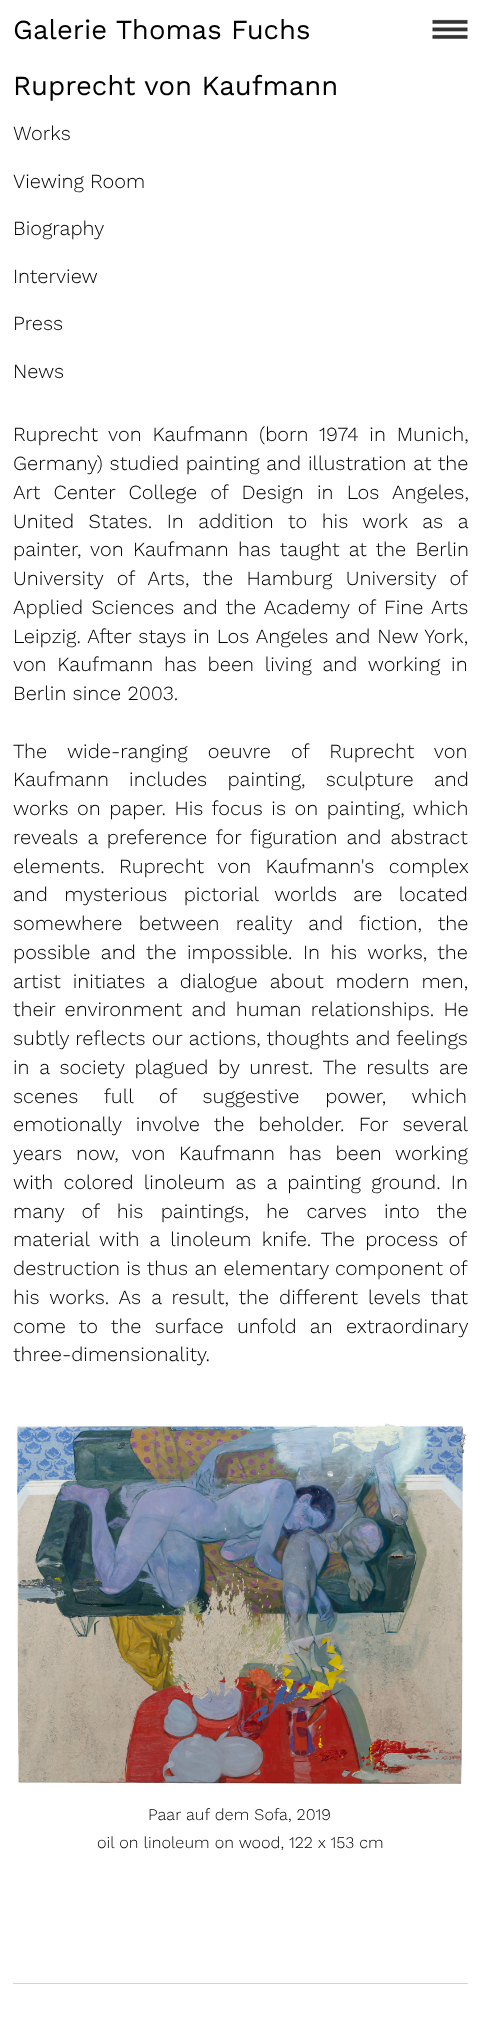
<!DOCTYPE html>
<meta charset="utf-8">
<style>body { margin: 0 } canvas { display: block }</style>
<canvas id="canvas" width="480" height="2019"></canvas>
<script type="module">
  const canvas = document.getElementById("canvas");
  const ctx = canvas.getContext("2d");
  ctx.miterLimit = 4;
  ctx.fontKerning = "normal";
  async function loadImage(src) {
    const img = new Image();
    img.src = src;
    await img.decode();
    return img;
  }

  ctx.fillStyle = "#ffffff";
  ctx.fillRect(0, 0, 480, 2019);
  ctx.font = "27.5px Work Sans";
  ctx.fillStyle = "#000000";
  ctx.fillText("Galerie Thomas Fuchs", 13, 39);
  ctx.drawImage(await loadImage("img1.png"), 432, 19, 36, 20);
  ctx.fillText("Ruprecht von Kaufmann", 13, 95);
  ctx.font = "300 20px Work Sans";
  ctx.fillText("Works", 13, 140);
  ctx.fillText("Viewing Room", 13, 188);
  ctx.fillText("Biography", 13, 235);
  ctx.fillText("Interview", 13, 283);
  ctx.fillText("Press", 13, 330);
  ctx.fillText("News", 13, 378);
  ctx.wordSpacing = "4.5px";
  ctx.fillText("Ruprecht von Kaufmann (born 1974 in Munich,", 13, 441);
  ctx.wordSpacing = "0.5px";
  ctx.fillText("Germany) studied painting and illustration at the", 13, 470);
  ctx.wordSpacing = "7px";
  ctx.fillText("Art Center College of Design in Los Angeles,", 13, 499);
  ctx.wordSpacing = "8.25px";
  ctx.fillText("United States. In addition to his work as a", 13, 528);
  ctx.wordSpacing = "3px";
  ctx.fillText("painter, von Kaufmann has taught at the Berlin", 13, 556);
  ctx.wordSpacing = "7.25px";
  ctx.fillText("University of Arts, the Hamburg University of", 13, 585);
  ctx.wordSpacing = "2px";
  ctx.fillText("Applied Sciences and the Academy of Fine Arts", 13, 614);
  ctx.wordSpacing = "0.75px";
  ctx.fillText("Leipzig. After stays in Los Angeles and New York,", 13, 643);
  ctx.wordSpacing = "4.5px";
  ctx.fillText("von Kaufmann has been living and working in", 13, 671);
  ctx.wordSpacing = "0px";
  ctx.fillText("Berlin since 2003.", 13, 700);
  ctx.wordSpacing = "14px";
  ctx.fillText("The wide-ranging oeuvre of Ruprecht von", 13, 758);
  ctx.fillText("Kaufmann includes painting, sculpture and", 13, 786);
  ctx.wordSpacing = "2.25px";
  ctx.fillText("works on paper. His focus is on painting, which", 13, 815);
  ctx.wordSpacing = "2.75px";
  ctx.fillText("reveals a preference for figuration and abstract", 13, 844);
  ctx.wordSpacing = "8px";
  ctx.fillText("elements. Ruprecht von Kaufmann's complex", 13, 873);
  ctx.wordSpacing = "10px";
  ctx.fillText("and mysterious pictorial worlds are located", 13, 901);
  ctx.fillText("somewhere between reality and fiction, the", 13, 930);
  ctx.wordSpacing = "4.25px";
  ctx.fillText("possible and the impossible. In his works, the", 13, 959);
  ctx.wordSpacing = "5.75px";
  ctx.fillText("artist initiates a dialogue about modern men,", 13, 988);
  ctx.wordSpacing = "3px";
  ctx.fillText("their environment and human relationships. He", 13, 1016);
  ctx.wordSpacing = "0px";
  ctx.fillText("subtly reflects our actions, thoughts and feelings", 13, 1045);
  ctx.wordSpacing = "3.5px";
  ctx.fillText("in a society plagued by unrest. The results are", 13, 1074);
  ctx.wordSpacing = "19.5px";
  ctx.fillText("scenes full of suggestive power, which", 13, 1103);
  ctx.wordSpacing = "8px";
  ctx.fillText("emotionally involve the beholder. For several", 13, 1131);
  ctx.wordSpacing = "7.5px";
  ctx.fillText("years now, von Kaufmann has been working", 13, 1160);
  ctx.wordSpacing = "4px";
  ctx.fillText("with colored linoleum as a painting ground. In", 13, 1189);
  ctx.wordSpacing = "11px";
  ctx.fillText("many of his paintings, he carves into the", 13, 1218);
  ctx.wordSpacing = "4px";
  ctx.fillText("material with a linoleum knife. The process of", 13, 1246);
  ctx.wordSpacing = "0px";
  ctx.fillText("destruction is thus an elementary component of", 13, 1275);
  ctx.wordSpacing = "3.75px";
  ctx.fillText("his works. As a result, the different levels that", 13, 1304);
  ctx.wordSpacing = "7px";
  ctx.fillText("come to the surface unfold an extraordinary", 13, 1333);
  ctx.wordSpacing = "0px";
  ctx.fillText("three-dimensionality.", 13, 1361);
  ctx.drawImage(await loadImage("img2.png"), 17, 1423, 450, 361);
  ctx.font = "300 16.25px Work Sans";
  ctx.fillText("Paar auf dem Sofa, 2019", 148, 1820);
  ctx.fillText("oil on linoleum on wood, 122 x 153 cm", 97, 1848);
  ctx.fillStyle = "#d3d3d3";
  ctx.fillRect(13, 1983, 455, 1);
</script>
